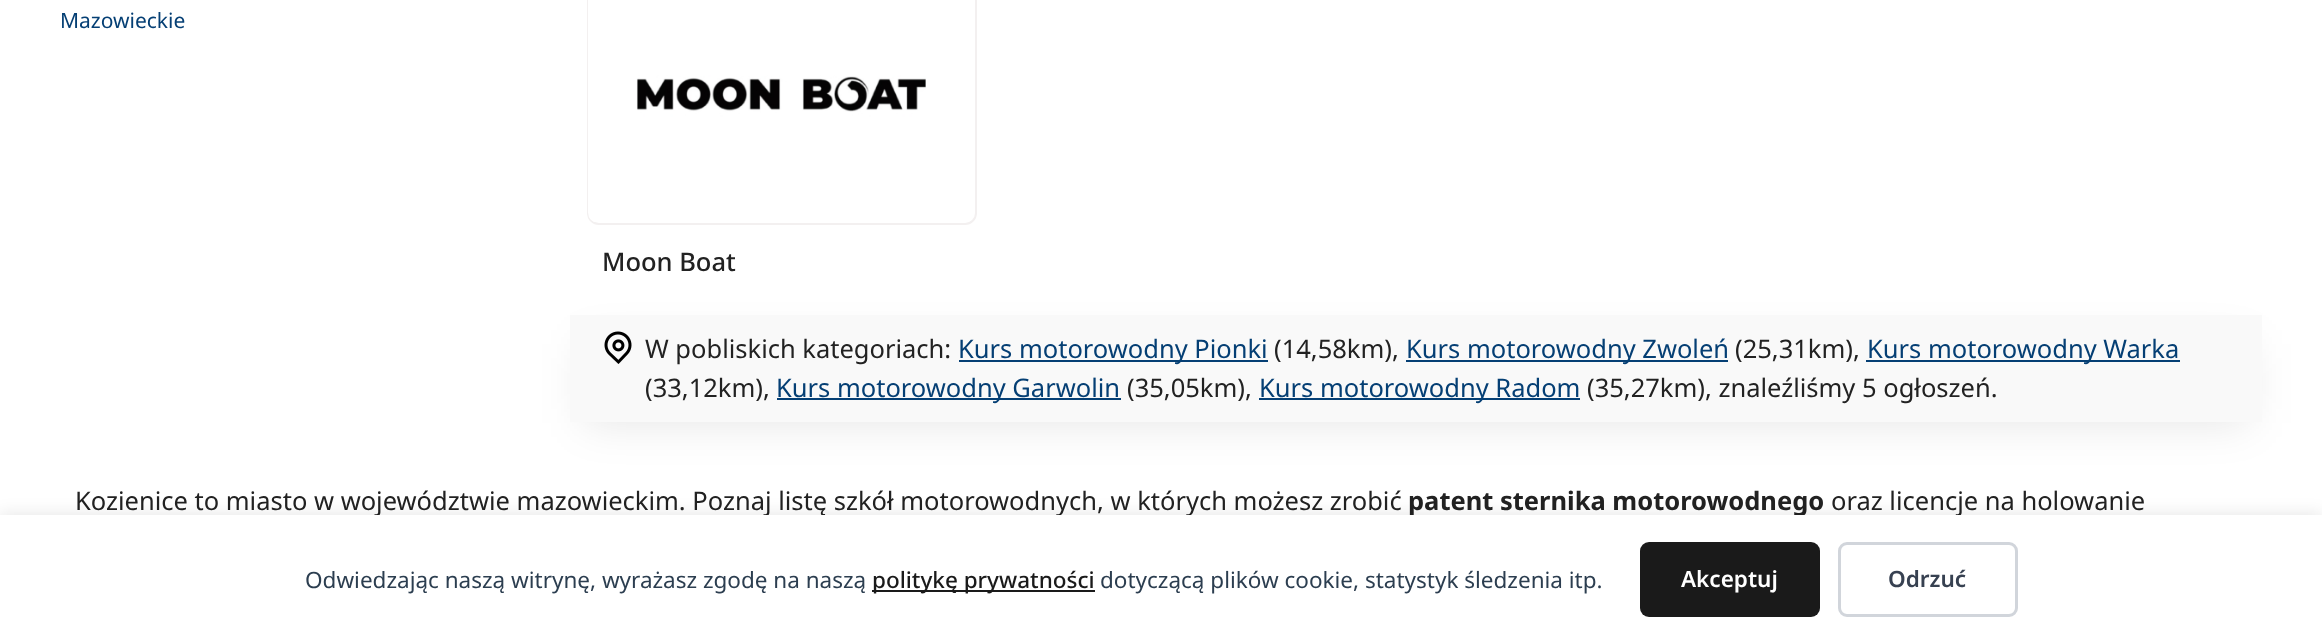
<!DOCTYPE html>
<meta charset="utf-8">
<style>body { margin: 0 } canvas { display: block }</style>
<canvas id="canvas" width="2322" height="643"></canvas>
<script type="module">
  const canvas = document.getElementById("canvas");
  const ctx = canvas.getContext("2d");
  ctx.miterLimit = 4;
  ctx.fontKerning = "normal";
  async function loadImage(src) {
    const img = new Image();
    img.src = src;
    await img.decode();
    return img;
  }

  ctx.fillStyle = "#ffffff";
  ctx.fillRect(0, 0, 2322, 643);
  ctx.font = "21px Noto Sans";
  ctx.fillStyle = "#053f74";
  ctx.fillText("Mazowieckie", 60, 28);
  ctx.beginPath();
  ctx.roundRect(588, -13, 388, 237, 11);
  ctx.strokeStyle = "#f3f0f0";
  ctx.lineWidth = 2;
  ctx.stroke();
  ctx.drawImage(await loadImage("img1.png"), 588, 0, 338, 222);
  ctx.font = "500 25.5px Noto Sans";
  ctx.fillStyle = "#222222";
  ctx.fillText("Moon Boat", 602, 271);
  ctx.fillStyle = "rgba(0, 0, 0, 0.1)";
  ctx.filter = "blur(22px)";
  ctx.beginPath();
  ctx.rect(584, 344, 1665, 79);
  ctx.fill();
  ctx.filter = "none";
  ctx.fillStyle = "#f9f9f9";
  ctx.fillRect(570, 315, 1692, 107);
  ctx.drawImage(await loadImage("img2.png"), 604, 331, 28, 33);
  ctx.font = "25.5px Noto Sans";
  ctx.fillStyle = "#222222";
  ctx.fillText("W pobliskich kategoriach:", 645, 358);
  ctx.fillStyle = "#053f74";
  ctx.fillRect(959, 360, 309, 2);
  ctx.fillText("Kurs motorowodny Pionki", 958, 358);
  ctx.fillStyle = "#222222";
  ctx.fillText("(14,58km),", 1274, 358);
  ctx.fillStyle = "#053f74";
  ctx.fillRect(1406, 360, 322, 2);
  ctx.fillText("Kurs motorowodny Zwoleń", 1406, 358);
  ctx.fillStyle = "#222222";
  ctx.fillText("(25,31km),", 1735, 358);
  ctx.fillStyle = "#053f74";
  ctx.fillRect(1866, 360, 314, 2);
  ctx.fillText("Kurs motorowodny Warka", 1867, 358);
  ctx.fillStyle = "#222222";
  ctx.fillText("(33,12km),", 645, 397);
  ctx.fillStyle = "#053f74";
  ctx.fillRect(777, 398, 344, 2);
  ctx.fillText("Kurs motorowodny Garwolin", 776, 397);
  ctx.fillStyle = "#222222";
  ctx.fillText("(35,05km),", 1127, 397);
  ctx.fillStyle = "#053f74";
  ctx.fillRect(1259, 398, 321, 2);
  ctx.fillText("Kurs motorowodny Radom", 1259, 397);
  ctx.fillStyle = "#222222";
  ctx.fillText("(35,27km), znaleźliśmy 5 ogłoszeń.", 1587, 397);
  ctx.fillText("Kozienice to miasto w województwie mazowieckim. Poznaj listę szkół motorowodnych, w których możesz zrobić", 75, 510);
  ctx.font = "bold 25.5px Noto Sans";
  ctx.fillText("patent sternika motorowodnego", 1408, 510);
  ctx.font = "25.5px Noto Sans";
  ctx.fillText("oraz licencje na holowanie", 1831, 510);
  ctx.fillStyle = "rgba(0, 0, 0, 0.08)";
  ctx.filter = "blur(7.5px)";
  ctx.beginPath();
  ctx.rect(0, 512, 2322, 129);
  ctx.fill();
  ctx.filter = "none";
  ctx.fillStyle = "#ffffff";
  ctx.fillRect(0, 515, 2322, 128);
  ctx.font = "22.5px Noto Sans";
  ctx.fillStyle = "#2c3e50";
  ctx.fillText("Odwiedzając naszą witrynę, wyrażasz zgodę na naszą", 305, 588);
  ctx.fillStyle = "#1a1a1a";
  ctx.fillRect(872, 590, 223, 2);
  ctx.font = "500 22.5px Noto Sans";
  ctx.fillText("politykę prywatności", 872, 588);
  ctx.font = "22.5px Noto Sans";
  ctx.fillStyle = "#2c3e50";
  ctx.fillText("dotyczącą plików cookie, statystyk śledzenia itp.", 1100, 588);
  ctx.fillStyle = "#1a1a1a";
  ctx.beginPath();
  ctx.roundRect(1640, 542, 180, 75, 9);
  ctx.fill();
  ctx.font = "600 22.5px Noto Sans";
  ctx.fillStyle = "#ffffff";
  ctx.fillText("Akceptuj", 1681, 587);
  ctx.beginPath();
  ctx.roundRect(1839.5, 543.5, 177, 72, 7.5);
  ctx.strokeStyle = "#d1d5db";
  ctx.lineWidth = 3;
  ctx.stroke();
  ctx.fillStyle = "#374151";
  ctx.fillText("Odrzuć", 1888, 587);
</script>
